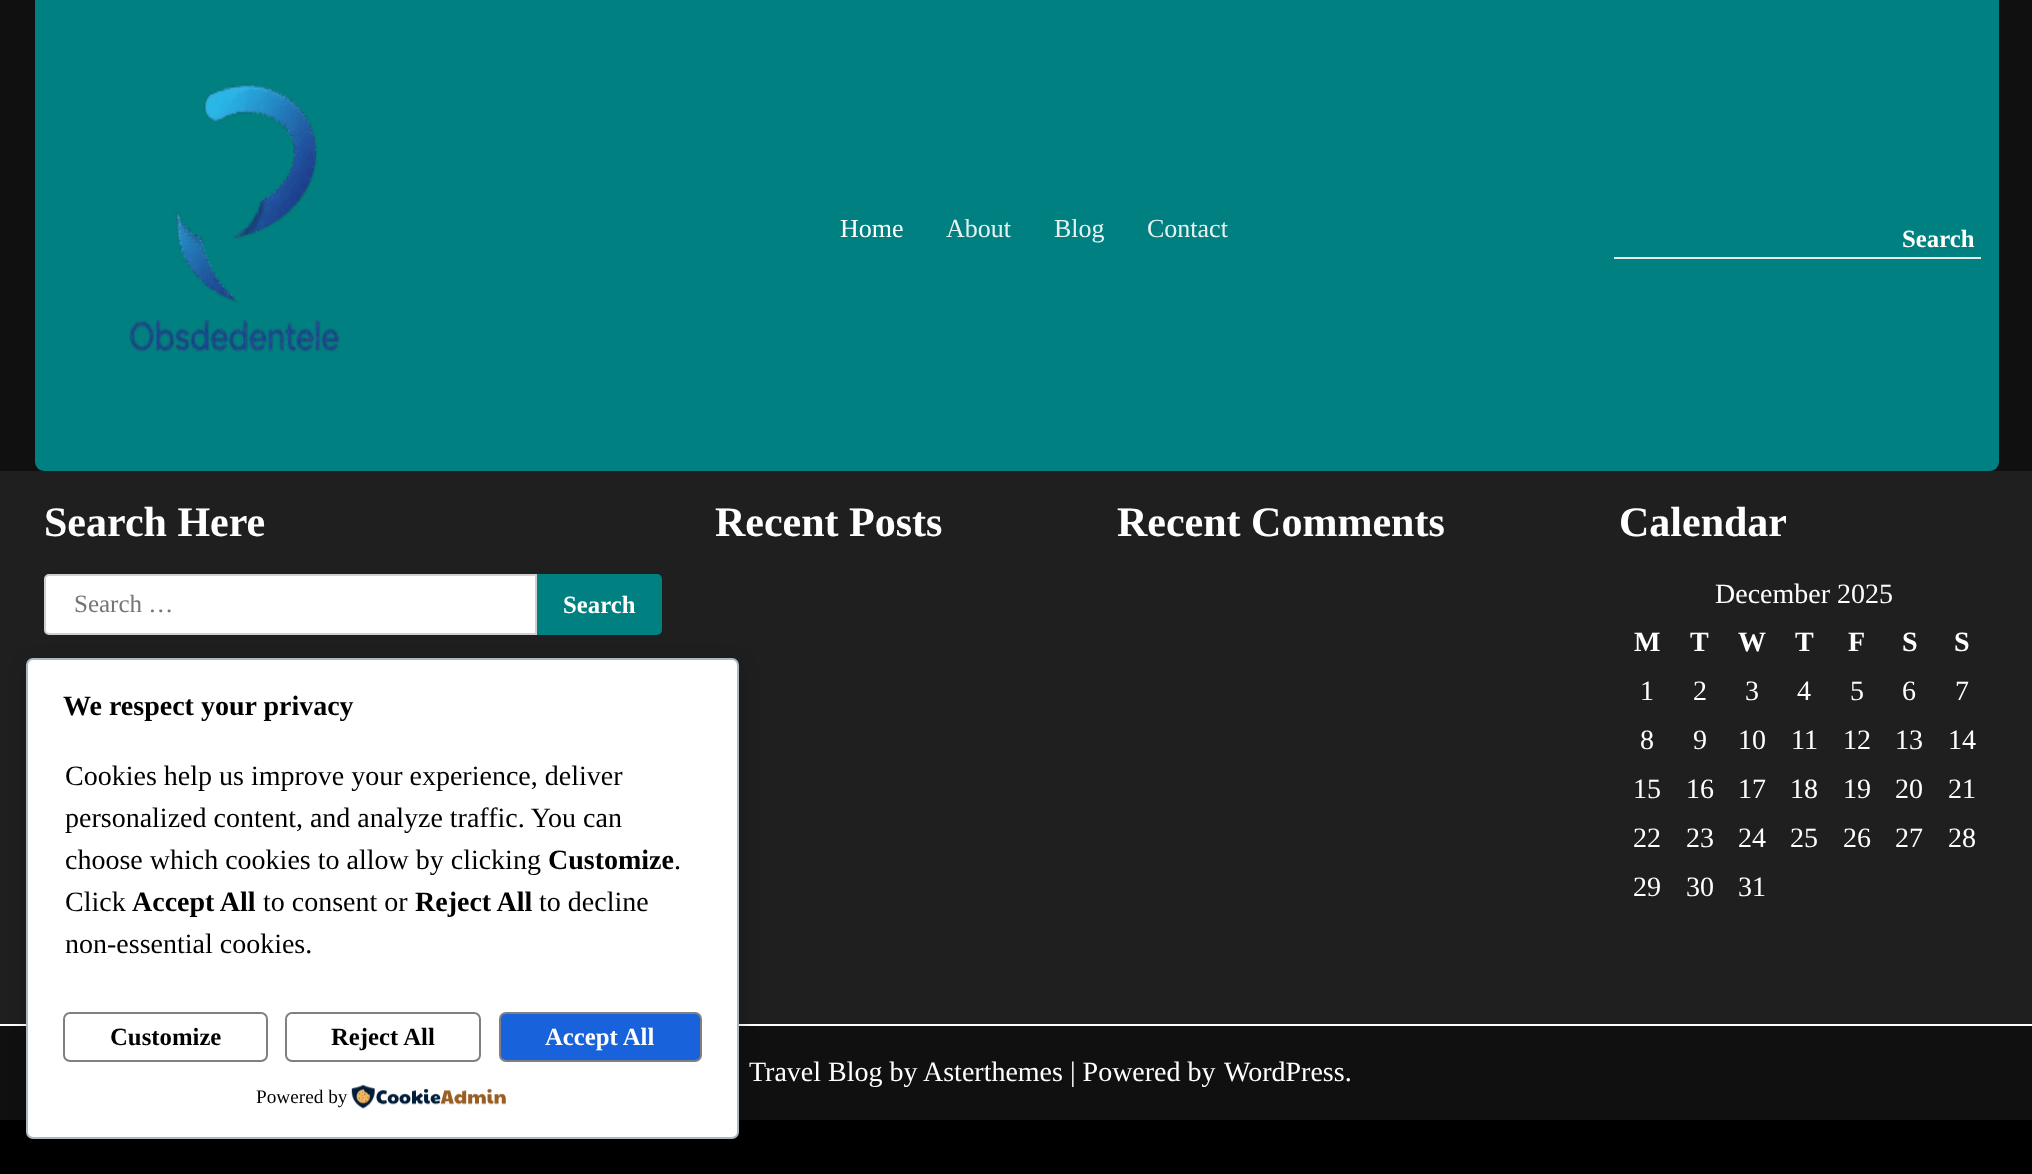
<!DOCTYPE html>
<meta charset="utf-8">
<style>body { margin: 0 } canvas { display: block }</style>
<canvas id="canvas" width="2032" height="1174"></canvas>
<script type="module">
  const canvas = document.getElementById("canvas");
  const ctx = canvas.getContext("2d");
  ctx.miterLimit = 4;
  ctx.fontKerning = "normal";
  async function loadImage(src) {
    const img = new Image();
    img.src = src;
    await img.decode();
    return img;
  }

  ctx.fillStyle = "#101010";
  ctx.fillRect(0, 0, 2032, 1174);
  ctx.fillStyle = "#008080";
  ctx.beginPath();
  ctx.roundRect(35, -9, 1964, 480, 9);
  ctx.fill();
  ctx.drawImage(await loadImage("img1.png"), 129, 84, 211, 269);
  ctx.font = "26px Liberation Serif";
  ctx.fillStyle = "#ffffff";
  ctx.fillText("Home", 840, 237);
  ctx.fillStyle = "#e6f2f2";
  ctx.fillText("About", 946, 237);
  ctx.fillText("Blog", 1054, 237);
  ctx.fillText("Contact", 1147, 237);
  ctx.fillStyle = "#e9e9e9";
  ctx.fillRect(1614, 257, 367, 2);
  ctx.font = "bold 24.75px Liberation Serif";
  ctx.fillStyle = "#ffffff";
  ctx.fillText("Search", 1902, 247);
  ctx.fillStyle = "#1f1f1f";
  ctx.fillRect(0, 471, 2032, 553);
  ctx.font = "bold 42px Liberation Serif";
  ctx.fillStyle = "#ffffff";
  ctx.fillText("Search Here", 44, 536);
  ctx.beginPath();
  ctx.roundRect(45, 575, 491, 59, [4, 0, 0, 4]);
  ctx.fill();
  ctx.strokeStyle = "#d3ced2";
  ctx.lineWidth = 2;
  ctx.stroke();
  ctx.font = "25px Liberation Serif";
  ctx.fillStyle = "#757575";
  ctx.fillText("Search …", 74, 612);
  ctx.fillStyle = "#008080";
  ctx.beginPath();
  ctx.roundRect(538, 575, 123, 59, [0, 4, 4, 0]);
  ctx.fill();
  ctx.strokeStyle = "#008080";
  ctx.stroke();
  ctx.font = "bold 24.75px Liberation Serif";
  ctx.fillStyle = "#ffffff";
  ctx.fillText("Search", 563, 613);
  ctx.font = "bold 42px Liberation Serif";
  ctx.fillText("Recent Posts", 715, 536);
  ctx.fillText("Recent Comments", 1117, 536);
  ctx.fillText("Calendar", 1619, 536);
  ctx.font = "28px Liberation Serif";
  ctx.fillText("December 2025", 1715, 603);
  ctx.font = "bold 28px Liberation Serif";
  ctx.fillText("M", 1634, 651);
  ctx.fillText("T", 1690, 651);
  ctx.fillText("W", 1738, 651);
  ctx.fillText("T", 1795, 651);
  ctx.fillText("F", 1848, 651);
  ctx.fillText("S", 1902, 651);
  ctx.fillText("S", 1954, 651);
  ctx.font = "28px Liberation Serif";
  ctx.fillText("1", 1640, 700);
  ctx.fillText("2", 1693, 700);
  ctx.fillText("3", 1745, 700);
  ctx.fillText("4", 1797, 700);
  ctx.fillText("5", 1850, 700);
  ctx.fillText("6", 1902, 700);
  ctx.fillText("7", 1955, 700);
  ctx.fillText("8", 1640, 749);
  ctx.fillText("9", 1693, 749);
  ctx.fillText("10", 1738, 749);
  ctx.fillText("11", 1791, 749);
  ctx.fillText("12", 1843, 749);
  ctx.fillText("13", 1895, 749);
  ctx.fillText("14", 1948, 749);
  ctx.fillText("15", 1633, 798);
  ctx.fillText("16", 1686, 798);
  ctx.fillText("17", 1738, 798);
  ctx.fillText("18", 1790, 798);
  ctx.fillText("19", 1843, 798);
  ctx.fillText("20", 1895, 798);
  ctx.fillText("21", 1948, 798);
  ctx.fillText("22", 1633, 847);
  ctx.fillText("23", 1686, 847);
  ctx.fillText("24", 1738, 847);
  ctx.fillText("25", 1790, 847);
  ctx.fillText("26", 1843, 847);
  ctx.fillText("27", 1895, 847);
  ctx.fillText("28", 1948, 847);
  ctx.fillText("29", 1633, 896);
  ctx.fillText("30", 1686, 896);
  ctx.fillText("31", 1738, 896);
  ctx.fillRect(0, 1024, 2032, 2);
  ctx.fillText("Travel Blog by Asterthemes | Powered by", 749, 1081);
  ctx.fillText("WordPress.", 1224, 1081);
  ctx.fillStyle = "#000000";
  ctx.fillRect(0, 1120, 2032, 54);
  ctx.fillStyle = "rgba(0, 0, 0, 0.2)";
  ctx.filter = "blur(9px)";
  ctx.beginPath();
  ctx.roundRect(28, 663, 712, 482, 7);
  ctx.fill();
  ctx.filter = "none";
  ctx.fillStyle = "#ffffff";
  ctx.beginPath();
  ctx.roundRect(27, 659, 711, 479, 6);
  ctx.fill();
  ctx.strokeStyle = "#abb8c3";
  ctx.stroke();
  ctx.font = "bold 28px Liberation Serif";
  ctx.fillStyle = "#000000";
  ctx.fillText("We respect your privacy", 63, 715);
  ctx.font = "28px Liberation Serif";
  ctx.fillText("Cookies help us improve your experience, deliver", 65, 785);
  ctx.fillText("personalized content, and analyze traffic. You can", 65, 827);
  ctx.fillText("choose which cookies to allow by clicking", 65, 869);
  ctx.font = "bold 28px Liberation Serif";
  ctx.fillText("Customize", 548, 869);
  ctx.font = "28px Liberation Serif";
  ctx.fillText(".", 674, 869);
  ctx.fillText("Click", 65, 911);
  ctx.font = "bold 28px Liberation Serif";
  ctx.fillText("Accept All", 132, 911);
  ctx.font = "28px Liberation Serif";
  ctx.fillText("to consent or", 263, 911);
  ctx.font = "bold 28px Liberation Serif";
  ctx.fillText("Reject All", 415, 911);
  ctx.font = "28px Liberation Serif";
  ctx.fillText("to decline", 539, 911);
  ctx.fillText("non-essential cookies.", 65, 953);
  ctx.beginPath();
  ctx.roundRect(64, 1013, 203, 48, 6);
  ctx.strokeStyle = "#808080";
  ctx.stroke();
  ctx.font = "bold 24.75px Liberation Serif";
  ctx.fillText("Customize", 110, 1045);
  ctx.beginPath();
  ctx.roundRect(286, 1013, 194, 48, 6);
  ctx.stroke();
  ctx.fillText("Reject All", 331, 1045);
  ctx.fillStyle = "#1863dc";
  ctx.beginPath();
  ctx.roundRect(500, 1013, 201, 48, 6);
  ctx.fill();
  ctx.stroke();
  ctx.fillStyle = "#ffffff";
  ctx.fillText("Accept All", 545, 1045);
  ctx.font = "19.25px Liberation Serif";
  ctx.fillStyle = "#000000";
  ctx.fillText("Powered by", 256, 1103);
  ctx.drawImage(await loadImage("img2.png"), 351, 1084, 155, 25);
</script>
